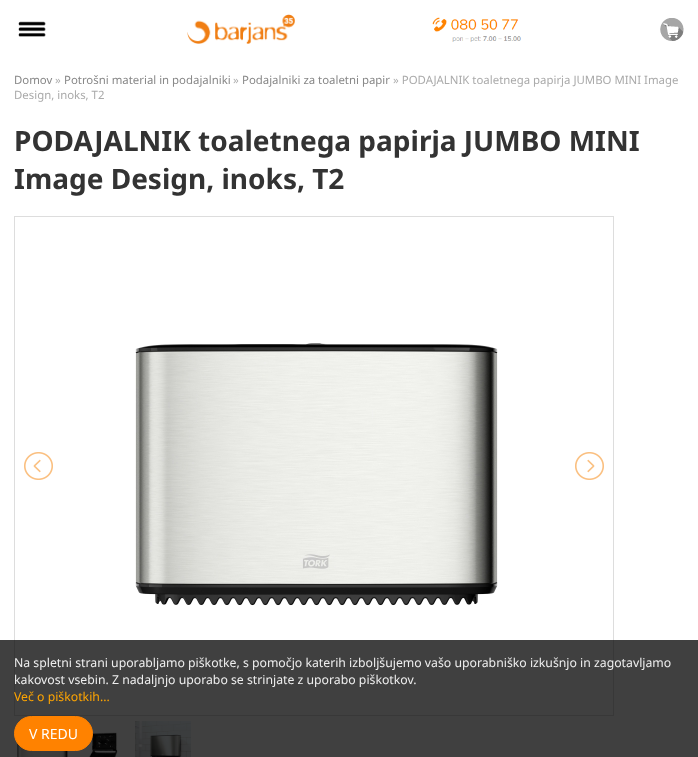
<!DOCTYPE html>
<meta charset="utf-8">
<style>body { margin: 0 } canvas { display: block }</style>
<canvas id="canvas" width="698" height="757"></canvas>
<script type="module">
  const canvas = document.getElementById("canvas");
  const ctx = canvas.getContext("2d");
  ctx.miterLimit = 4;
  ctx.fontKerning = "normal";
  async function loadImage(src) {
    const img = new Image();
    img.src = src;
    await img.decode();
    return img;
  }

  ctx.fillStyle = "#ffffff";
  ctx.fillRect(0, 0, 698, 757);
  ctx.drawImage(await loadImage("img1.png"), 18, 21, 28, 16);
  ctx.drawImage(await loadImage("img2.png"), 187, 14, 108, 30);
  ctx.drawImage(await loadImage("img3.png"), 432, 17, 89, 25);
  ctx.drawImage(await loadImage("img4.png"), 660, 18, 24, 23);
  ctx.font = "11.4px Noto Sans";
  ctx.fillStyle = "#888888";
  ctx.fillText("Domov", 14, 84);
  ctx.fillStyle = "#aaaaaa";
  ctx.fillText("»", 55, 84);
  ctx.fillStyle = "#888888";
  ctx.fillText("Potrošni material in podajalniki", 64, 84);
  ctx.fillStyle = "#aaaaaa";
  ctx.fillText("»", 233, 84);
  ctx.fillStyle = "#888888";
  ctx.fillText("Podajalniki za toaletni papir", 242, 84);
  ctx.fillStyle = "#aaaaaa";
  ctx.fillText("» PODAJALNIK toaletnega papirja JUMBO MINI Image", 393, 84);
  ctx.fillText("Design, inoks, T2", 14, 99);
  ctx.font = "bold 28px Noto Sans";
  ctx.fillStyle = "#333333";
  ctx.fillText("PODAJALNIK toaletnega papirja JUMBO MINI", 14, 151);
  ctx.fillText("Image Design, inoks, T2", 14, 189);
  ctx.strokeStyle = "#dddddd";
  ctx.strokeRect(14.5, 216.5, 599, 499);
  ctx.drawImage(await loadImage("img5.png"), 135, 343, 363, 263);
  ctx.drawImage(await loadImage("img6.png"), 24, 452, 29, 28);
  ctx.drawImage(await loadImage("img7.png"), 575, 452, 29, 28);
  ctx.drawImage(await loadImage("img8.png"), 17, 743, 51, 14);
  ctx.drawImage(await loadImage("img9.png"), 89, 732, 29, 25);
  ctx.drawImage(await loadImage("img10.png"), 135, 721, 56, 36);
  ctx.fillStyle = "rgba(0, 0, 0, 0.75)";
  ctx.fillRect(0, 640, 698, 117);
  ctx.font = "12.25px Noto Sans";
  ctx.fillStyle = "#eeeeee";
  ctx.fillText("Na spletni strani uporabljamo piškotke, s pomočjo katerih izboljšujemo vašo uporabniško izkušnjo in zagotavljamo", 14, 667);
  ctx.fillText("kakovost vsebin. Z nadaljnjo uporabo se strinjate z uporabo piškotkov.", 14, 684);
  ctx.fillStyle = "#ffa500";
  ctx.fillText("Več o piškotkih...", 14, 701);
  ctx.fillStyle = "#ff8200";
  ctx.beginPath();
  ctx.roundRect(14.5, 716.5, 78, 34, 17);
  ctx.fill();
  ctx.strokeStyle = "#ff8200";
  ctx.stroke();
  ctx.font = "14px Noto Sans";
  ctx.fillStyle = "#ffffff";
  ctx.fillText("V REDU", 29, 739);
</script>
